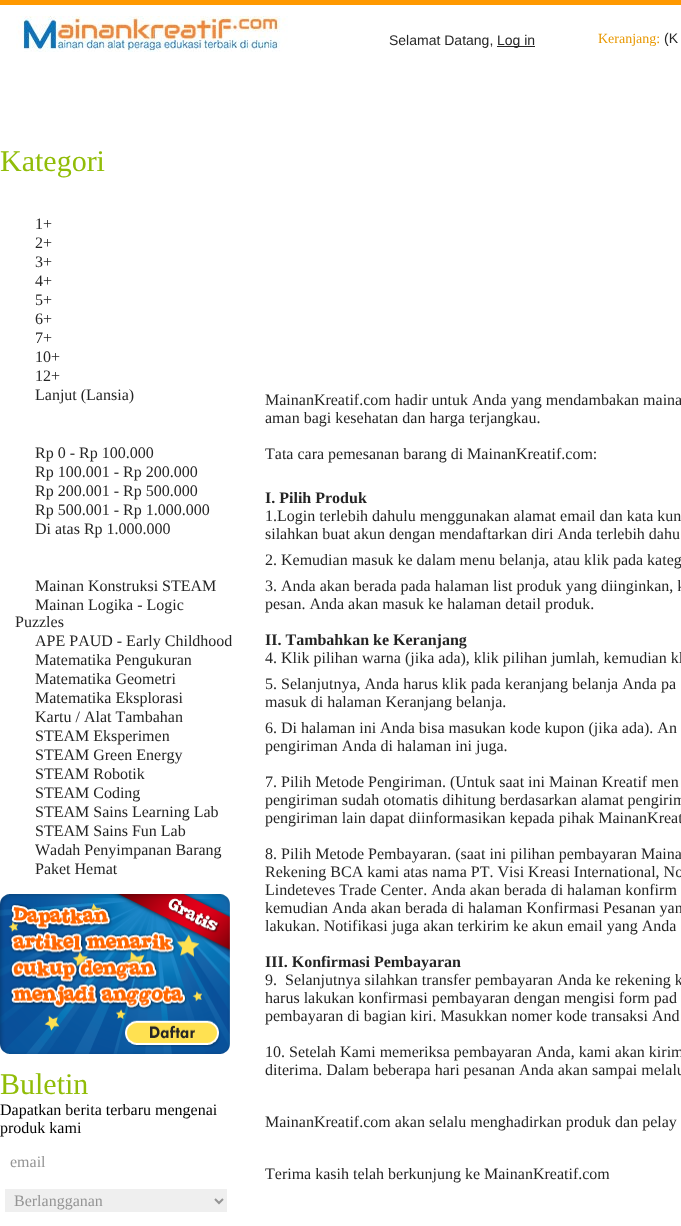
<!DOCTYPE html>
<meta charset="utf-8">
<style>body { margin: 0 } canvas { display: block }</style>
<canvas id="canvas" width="681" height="1226"></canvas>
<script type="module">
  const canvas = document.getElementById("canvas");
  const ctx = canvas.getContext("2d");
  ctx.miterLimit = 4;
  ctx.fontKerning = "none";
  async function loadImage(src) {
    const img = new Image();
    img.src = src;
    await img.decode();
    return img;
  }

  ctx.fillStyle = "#ffffff";
  ctx.fillRect(0, 0, 681, 1226);
  ctx.fillStyle = "#ff9900";
  ctx.fillRect(0, 0, 681, 5);
  ctx.drawImage(await loadImage("img1.png"), 16, 16, 272, 36);
  ctx.font = "14px Liberation Sans";
  ctx.fillStyle = "#252525";
  ctx.fillText("Selamat Datang,", 389, 45);
  ctx.fillRect(497, 46, 38, 1);
  ctx.fillText("Log in", 497, 45);
  ctx.font = "14px Liberation Serif";
  ctx.fillStyle = "#e89800";
  ctx.fillText("Keranjang:", 598, 43);
  ctx.font = "14px Liberation Sans";
  ctx.fillStyle = "#252525";
  ctx.fillText("(K", 664, 43);
  ctx.font = "30px Liberation Serif";
  ctx.fillStyle = "#91bd08";
  ctx.fillText("Kategori", 0, 171);
  ctx.font = "16px Liberation Serif";
  ctx.fillStyle = "#252525";
  ctx.fillText("1+", 35, 229);
  ctx.fillText("2+", 35, 248);
  ctx.fillText("3+", 35, 267);
  ctx.fillText("4+", 35, 286);
  ctx.fillText("5+", 35, 305);
  ctx.fillText("6+", 35, 324);
  ctx.fillText("7+", 35, 343);
  ctx.fillText("10+", 35, 362);
  ctx.fillText("12+", 35, 381);
  ctx.fillText("Lanjut (Lansia)", 35, 400);
  ctx.fillText("Rp 0 - Rp 100.000", 35, 458);
  ctx.fillText("Rp 100.001 - Rp 200.000", 35, 477);
  ctx.fillText("Rp 200.001 - Rp 500.000", 35, 496);
  ctx.fillText("Rp 500.001 - Rp 1.000.000", 35, 515);
  ctx.fillText("Di atas Rp 1.000.000", 35, 534);
  ctx.fillText("Mainan Konstruksi STEAM", 35, 591);
  ctx.fillText("Mainan Logika - Logic", 35, 610);
  ctx.fillText("Puzzles", 15, 627);
  ctx.fillText("APE PAUD - Early Childhood", 35, 646);
  ctx.fillText("Matematika Pengukuran", 35, 665);
  ctx.fillText("Matematika Geometri", 35, 684);
  ctx.fillText("Matematika Eksplorasi", 35, 703);
  ctx.fillText("Kartu / Alat Tambahan", 35, 722);
  ctx.fillText("STEAM Eksperimen", 35, 741);
  ctx.fillText("STEAM Green Energy", 35, 760);
  ctx.fillText("STEAM Robotik", 35, 779);
  ctx.fillText("STEAM Coding", 35, 798);
  ctx.fillText("STEAM Sains Learning Lab", 35, 817);
  ctx.fillText("STEAM Sains Fun Lab", 35, 836);
  ctx.fillText("Wadah Penyimpanan Barang", 35, 855);
  ctx.fillText("Paket Hemat", 35, 874);
  ctx.drawImage(await loadImage("img2.png"), 0, 894, 230, 160);
  ctx.font = "30px Liberation Serif";
  ctx.fillStyle = "#91bd08";
  ctx.fillText("Buletin", 0, 1094);
  ctx.font = "16px Liberation Serif";
  ctx.fillStyle = "#000000";
  ctx.fillText("Dapatkan berita terbaru mengenai", 0, 1115);
  ctx.fillText("produk kami", 0, 1133);
  ctx.fillStyle = "#959595";
  ctx.fillText("email", 10, 1167);
  ctx.fillStyle = "#efefef";
  ctx.fillRect(5, 1189, 222, 23);
  ctx.beginPath();
  ctx.moveTo(215, 1199);
  ctx.lineTo(219, 1203);
  ctx.lineTo(223, 1199);
  ctx.strokeStyle = "#959595";
  ctx.lineWidth = 2;
  ctx.stroke();
  ctx.fillStyle = "#959595";
  ctx.fillText("Berlangganan", 14, 1206);
  ctx.fillStyle = "#252525";
  ctx.fillText("MainanKreatif.com hadir untuk Anda yang mendambakan maina", 265, 405);
  ctx.fillText("aman bagi kesehatan dan harga terjangkau. ", 265, 423);
  ctx.fillText("Tata cara pemesanan barang di MainanKreatif.com:", 265, 459);
  ctx.font = "bold 16px Liberation Serif";
  ctx.fillText("I. Pilih Produk", 265, 503);
  ctx.font = "16px Liberation Serif";
  ctx.fillText("1.Login terlebih dahulu menggunakan alamat email dan kata kun", 265, 521);
  ctx.fillText("silahkan buat akun dengan mendaftarkan diri Anda terlebih dahu", 265, 539);
  ctx.fillText("2. Kemudian masuk ke dalam menu belanja, atau klik pada kateg", 265, 565);
  ctx.fillText("3. Anda akan berada pada halaman list produk yang diinginkan, k", 265, 591);
  ctx.fillText("pesan. Anda akan masuk ke halaman detail produk.", 265, 609);
  ctx.font = "bold 16px Liberation Serif";
  ctx.fillText("II. Tambahkan ke Keranjang", 265, 645);
  ctx.font = "16px Liberation Serif";
  ctx.fillText("4. Klik pilihan warna (jika ada), klik pilihan jumlah, kemudian kl", 265, 663);
  ctx.fillText("5. Selanjutnya, Anda harus klik pada keranjang belanja Anda pa", 265, 689);
  ctx.fillText("masuk di halaman Keranjang belanja.", 265, 707);
  ctx.fillText("6. Di halaman ini Anda bisa masukan kode kupon (jika ada). An", 265, 733);
  ctx.fillText("pengiriman Anda di halaman ini juga.", 265, 751);
  ctx.fillText("7. Pilih Metode Pengiriman. (Untuk saat ini Mainan Kreatif men", 265, 787);
  ctx.fillText("pengiriman sudah otomatis dihitung berdasarkan alamat pengirim", 265, 805);
  ctx.fillText("pengiriman lain dapat diinformasikan kepada pihak MainanKreat", 265, 823);
  ctx.fillText("8. Pilih Metode Pembayaran. (saat ini pilihan pembayaran Maina", 265, 859);
  ctx.fillText("Rekening BCA kami atas nama PT. Visi Kreasi International, No", 265, 877);
  ctx.fillText("Lindeteves Trade Center. Anda akan berada di halaman konfirm", 265, 895);
  ctx.fillText("kemudian Anda akan berada di halaman Konfirmasi Pesanan yan", 265, 913);
  ctx.fillText("lakukan. Notifikasi juga akan terkirim ke akun email yang Anda", 265, 931);
  ctx.font = "bold 16px Liberation Serif";
  ctx.fillText("III. Konfirmasi Pembayaran", 265, 967);
  ctx.font = "16px Liberation Serif";
  ctx.fillText("9.  Selanjutnya silahkan transfer pembayaran Anda ke rekening k", 265, 985);
  ctx.fillText("harus lakukan konfirmasi pembayaran dengan mengisi form pad", 265, 1003);
  ctx.fillText("pembayaran di bagian kiri. Masukkan nomer kode transaksi And", 265, 1021);
  ctx.fillText("10. Setelah Kami memeriksa pembayaran Anda, kami akan kirim", 265, 1057);
  ctx.fillText("diterima. Dalam beberapa hari pesanan Anda akan sampai melalu", 265, 1075);
  ctx.fillText("MainanKreatif.com akan selalu menghadirkan produk dan pelay", 265, 1127);
  ctx.fillText("Terima kasih telah berkunjung ke MainanKreatif.com", 265, 1179);
</script>
